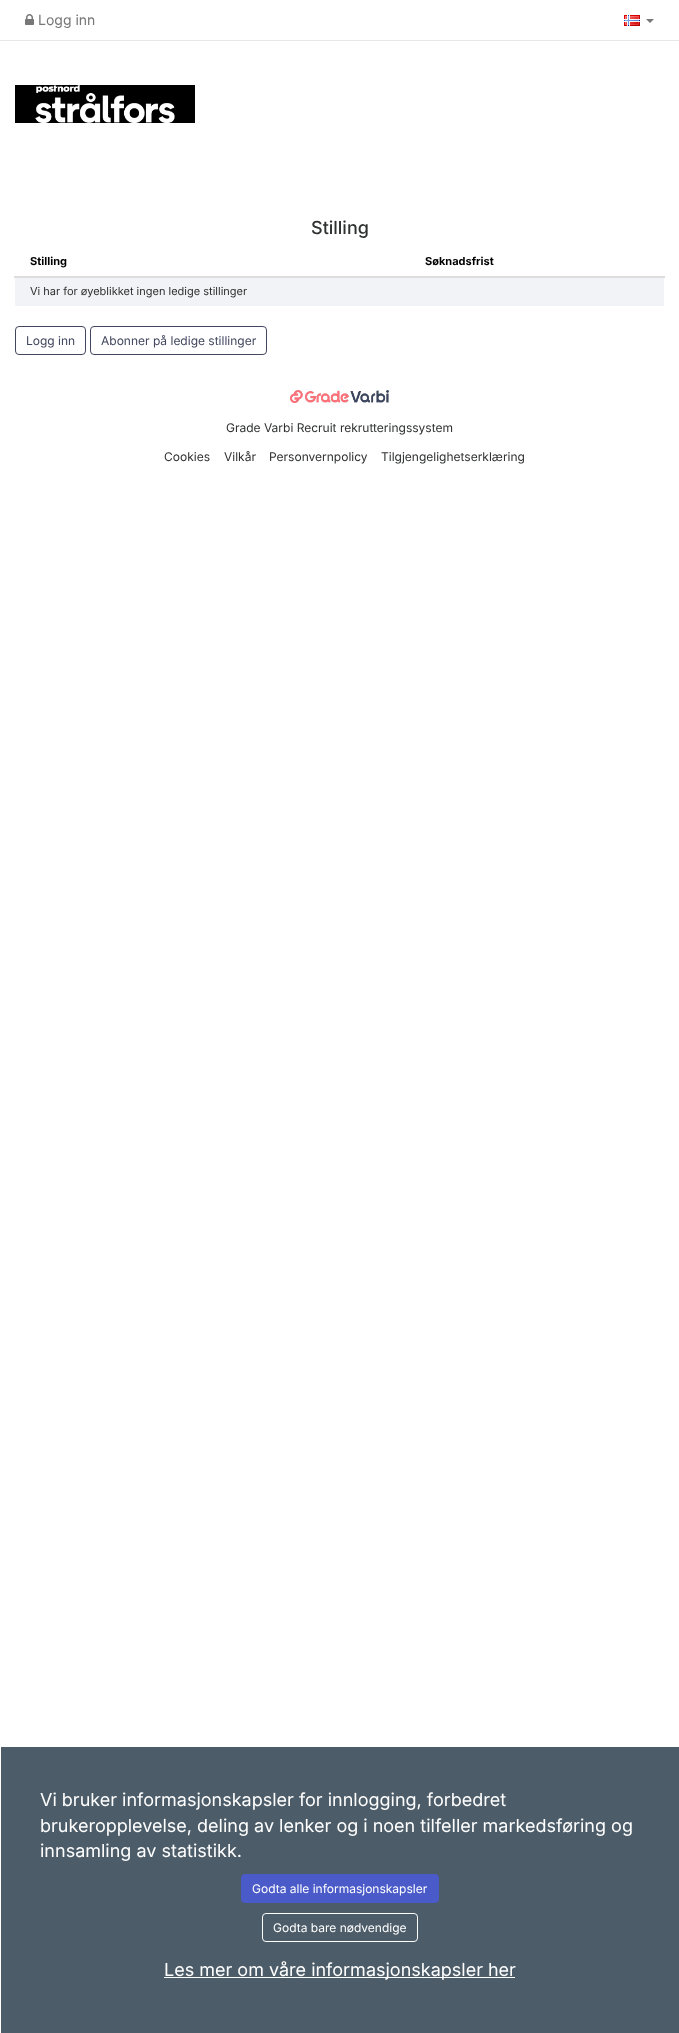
<!DOCTYPE html>
<meta charset="utf-8">
<style>body { margin: 0 } canvas { display: block }</style>
<canvas id="canvas" width="679" height="2033"></canvas>
<script type="module">
  const canvas = document.getElementById("canvas");
  const ctx = canvas.getContext("2d");
  ctx.miterLimit = 4;
  ctx.fontKerning = "normal";
  async function loadImage(src) {
    const img = new Image();
    img.src = src;
    await img.decode();
    return img;
  }

  ctx.fillStyle = "#ffffff";
  ctx.fillRect(0, 0, 679, 2033);
  ctx.fillStyle = "#e7e7e7";
  ctx.fillRect(0, 40, 679, 1);
  ctx.drawImage(await loadImage("img1.png"), 25, 14, 9, 11);
  ctx.font = "14px Inter";
  ctx.fillStyle = "#777777";
  ctx.fillText("Logg inn", 38, 25);
  ctx.drawImage(await loadImage("img2.png"), 624, 15, 16, 11);
  ctx.beginPath();
  ctx.moveTo(646, 19);
  ctx.lineTo(654, 19);
  ctx.lineTo(650, 23);
  ctx.closePath();
  ctx.fill();
  ctx.drawImage(await loadImage("img3.png"), 15, 85, 180, 38);
  ctx.font = "500 18px Inter";
  ctx.fillStyle = "#2f3030";
  ctx.fillText("Stilling", 311, 234);
  ctx.font = "bold 11px Inter";
  ctx.fillStyle = "#000000";
  ctx.fillText("Stilling", 30, 265);
  ctx.fillStyle = "#dddddd";
  ctx.fillRect(14, 276, 651, 2);
  ctx.fillStyle = "#000000";
  ctx.fillText("Søknadsfrist", 425, 265);
  ctx.fillStyle = "#f2f3f6";
  ctx.fillRect(15, 278, 649, 28);
  ctx.font = "11px Inter";
  ctx.fillStyle = "#2f3030";
  ctx.fillText("Vi har for øyeblikket ingen ledige stillinger", 30, 295);
  ctx.beginPath();
  ctx.roundRect(15.5, 326.5, 70, 28, 3.5);
  ctx.strokeStyle = "#41475e";
  ctx.stroke();
  ctx.font = "12px Inter";
  ctx.fillStyle = "#41475e";
  ctx.fillText("Logg inn", 26, 345);
  ctx.beginPath();
  ctx.roundRect(90.5, 326.5, 176, 28, 3.5);
  ctx.stroke();
  ctx.fillText("Abonner på ledige stillinger", 101, 345);
  ctx.drawImage(await loadImage("img4.png"), 290, 390, 99, 13);
  ctx.fillStyle = "#2f3030";
  ctx.fillText("Grade Varbi Recruit rekrutteringssystem", 226, 432);
  ctx.fillText("Cookies", 164, 461);
  ctx.fillText("Vilkår", 224, 461);
  ctx.fillText("Personvernpolicy", 269, 461);
  ctx.fillText("Tilgjengelighetserklæring", 381, 461);
  ctx.fillStyle = "#4c5c68";
  ctx.fillRect(1, 1747, 678, 286);
  ctx.font = "18px Inter";
  ctx.fillStyle = "#ffffff";
  ctx.fillText("Vi bruker informasjonskapsler for innlogging, forbedret", 40, 1806);
  ctx.fillText("brukeropplevelse, deling av lenker og i noen tilfeller markedsføring og", 40, 1832);
  ctx.fillText("innsamling av statistikk.", 40, 1857);
  ctx.fillStyle = "#4a5bc9";
  ctx.beginPath();
  ctx.roundRect(241.5, 1874.5, 197, 28, 3.5);
  ctx.fill();
  ctx.strokeStyle = "#4a5bc9";
  ctx.stroke();
  ctx.font = "12px Inter";
  ctx.fillStyle = "#ffffff";
  ctx.fillText("Godta alle informasjonskapsler", 252, 1893);
  ctx.beginPath();
  ctx.roundRect(262.5, 1913.5, 155, 28, 3.5);
  ctx.strokeStyle = "#ffffff";
  ctx.stroke();
  ctx.fillText("Godta bare nødvendige", 273, 1932);
  ctx.fillRect(164, 1977, 351, 1);
  ctx.font = "18px Inter";
  ctx.fillText("Les mer om våre informasjonskapsler her", 164, 1976);
</script>
